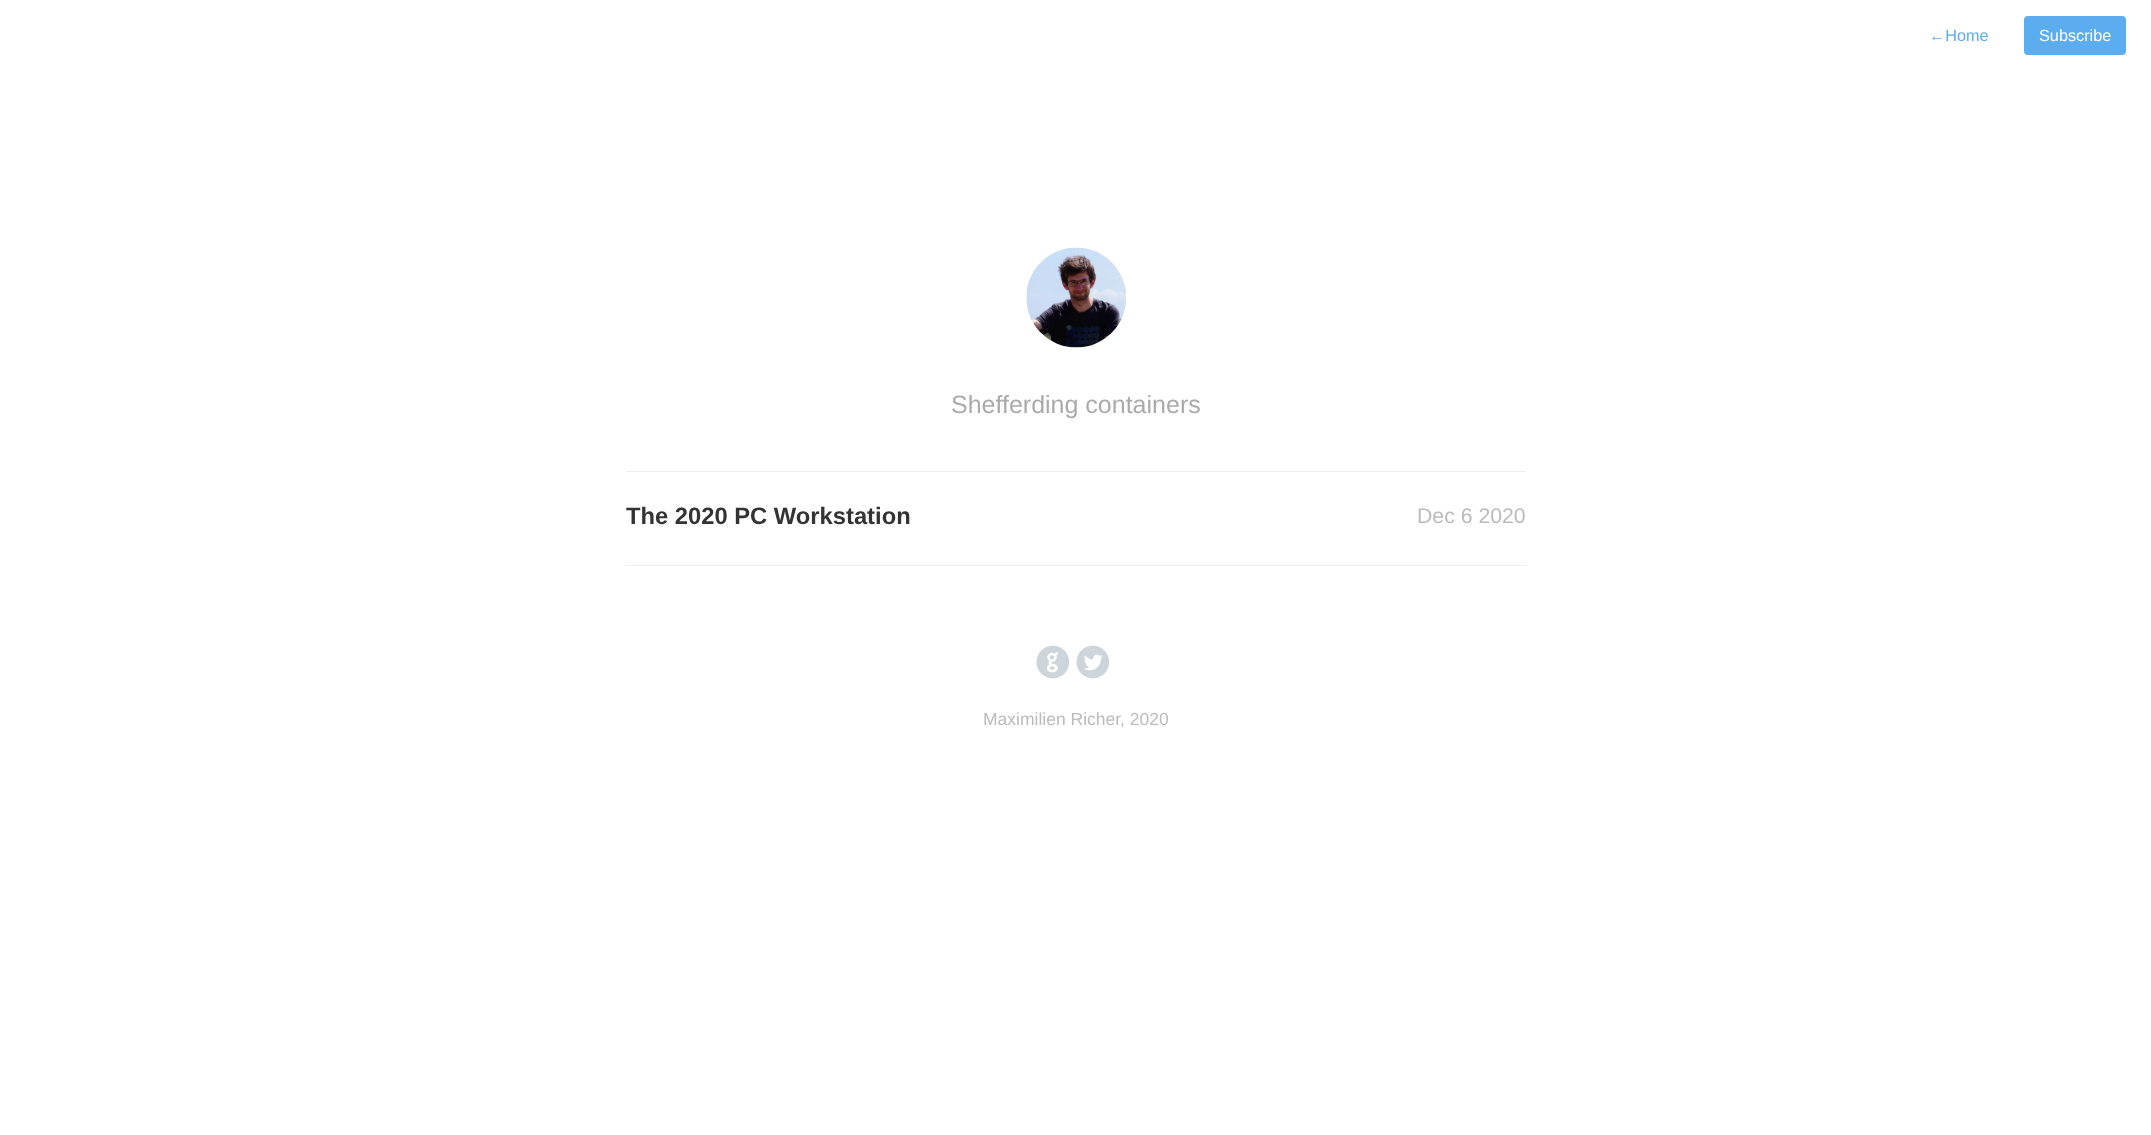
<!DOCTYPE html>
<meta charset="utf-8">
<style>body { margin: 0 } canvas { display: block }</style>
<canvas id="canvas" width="2151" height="1135"></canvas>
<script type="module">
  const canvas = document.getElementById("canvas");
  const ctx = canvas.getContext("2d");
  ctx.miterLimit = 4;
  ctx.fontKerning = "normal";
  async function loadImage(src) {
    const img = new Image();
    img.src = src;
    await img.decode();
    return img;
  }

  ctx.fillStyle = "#ffffff";
  ctx.fillRect(0, 0, 2151, 1135);
  ctx.font = "16.25px Liberation Sans";
  ctx.fillStyle = "#5badf0";
  ctx.fillText("←Home", 1929, 41);
  ctx.beginPath();
  ctx.roundRect(2024, 16, 102, 39, 4);
  ctx.fill();
  ctx.fillStyle = "#ffffff";
  ctx.fillText("Subscribe", 2039, 41);
  ctx.drawImage(await loadImage("img1.png"), 1026, 247, 100, 101);
  ctx.font = "25px Liberation Sans";
  ctx.fillStyle = "#aaaaaa";
  ctx.fillText("Shefferding containers", 951, 413);
  ctx.fillStyle = "#eeeeee";
  ctx.fillRect(626, 471, 900, 1);
  ctx.fillRect(626, 565, 900, 1);
  ctx.font = "bold 23.75px Liberation Sans";
  ctx.fillStyle = "#333333";
  ctx.fillText("The 2020 PC Workstation", 626, 524);
  ctx.font = "21.25px Liberation Sans";
  ctx.fillStyle = "#bbbbbb";
  ctx.fillText("Dec 6 2020", 1417, 523);
  ctx.drawImage(await loadImage("img2.png"), 1036, 645, 34, 34);
  ctx.drawImage(await loadImage("img3.png"), 1076, 645, 34, 34);
  ctx.font = "17.5px Liberation Sans";
  ctx.fillText("Maximilien Richer, 2020", 983, 725);
</script>
